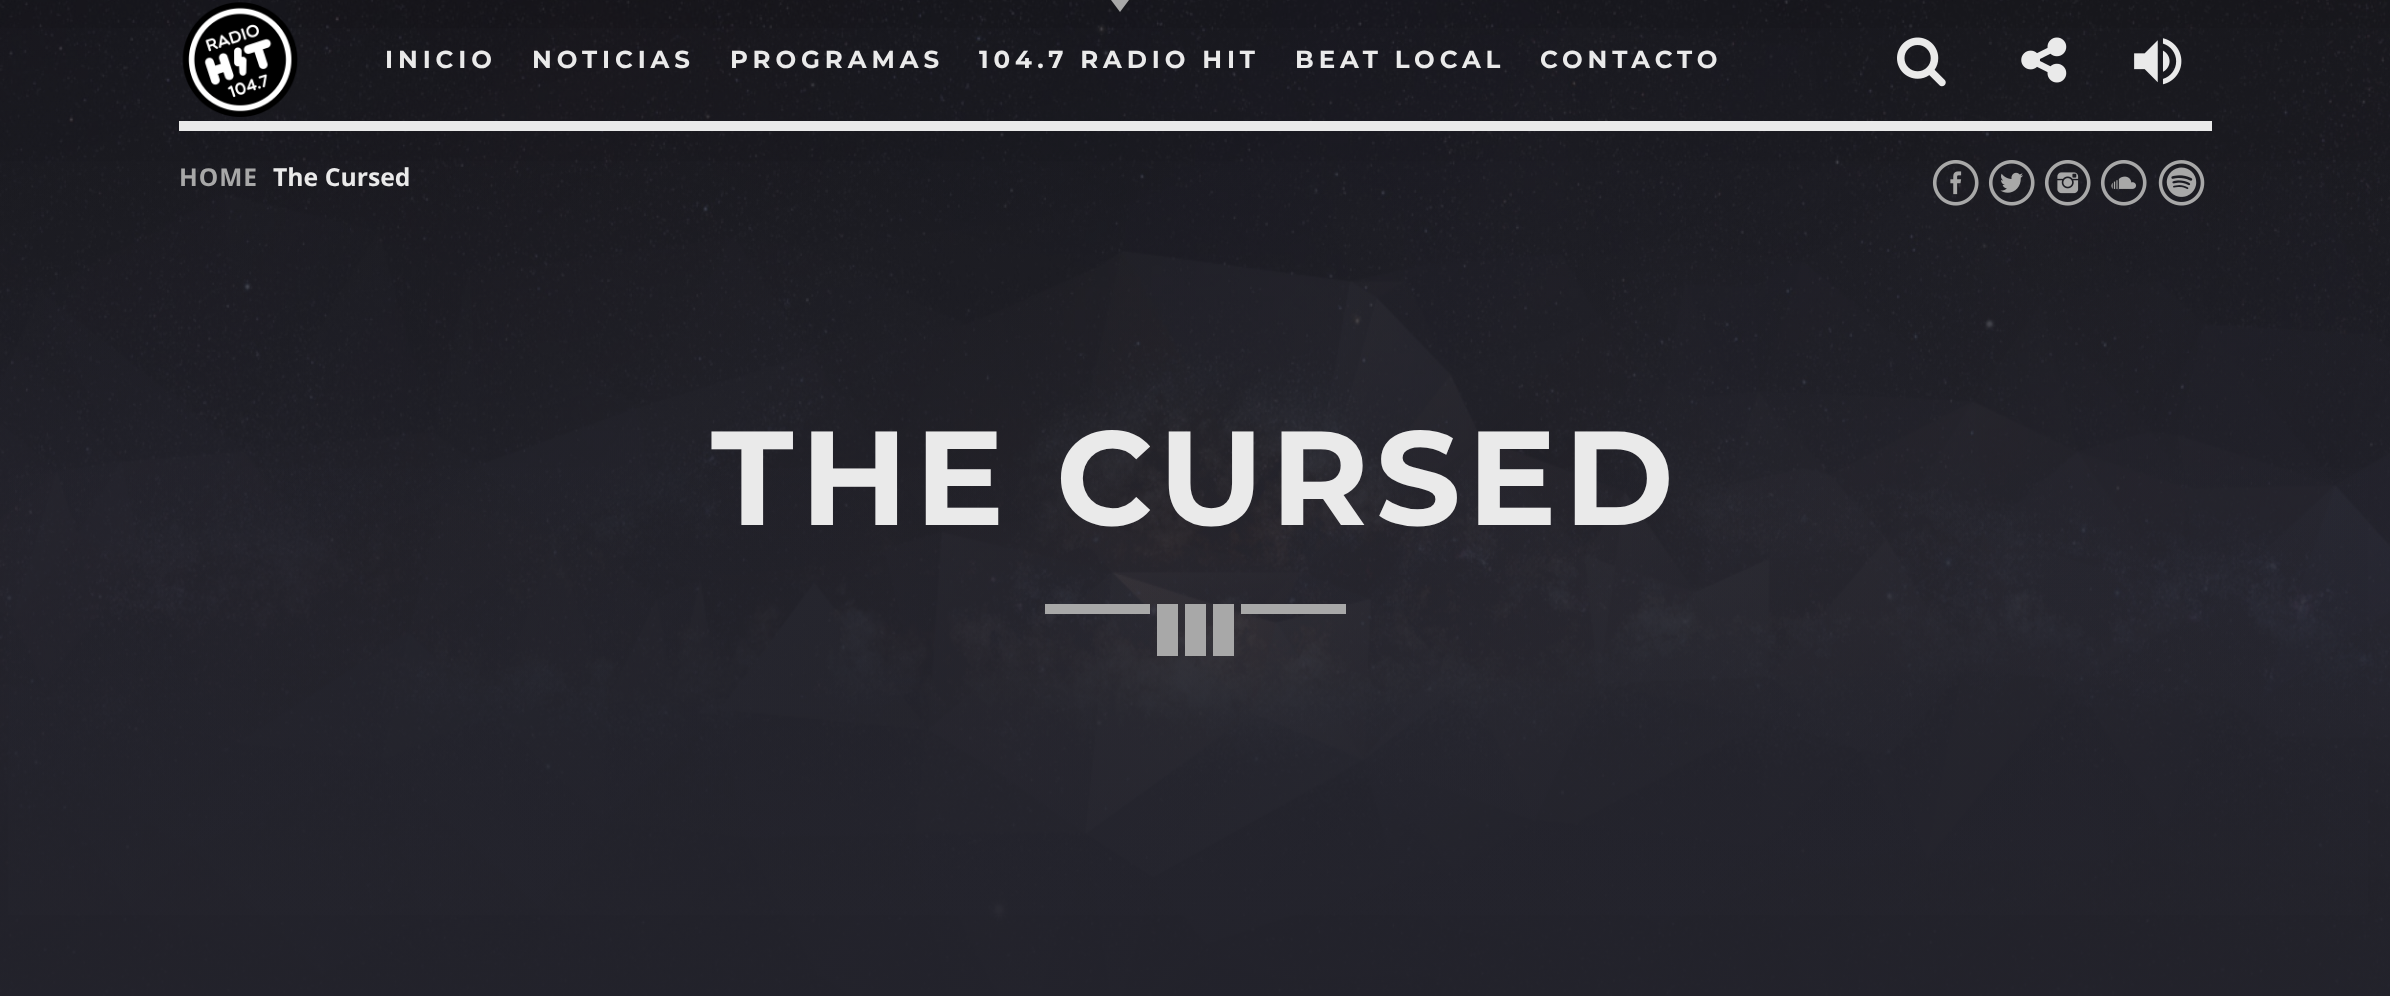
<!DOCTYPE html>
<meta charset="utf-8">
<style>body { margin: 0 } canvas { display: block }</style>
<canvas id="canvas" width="2390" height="996"></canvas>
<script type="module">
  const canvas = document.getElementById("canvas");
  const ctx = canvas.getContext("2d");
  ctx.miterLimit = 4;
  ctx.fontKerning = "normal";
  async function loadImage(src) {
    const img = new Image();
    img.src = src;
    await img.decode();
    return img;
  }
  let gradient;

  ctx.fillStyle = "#24242d";
  ctx.fillRect(0, 0, 2390, 996);
  ctx.drawImage(await loadImage("img10.png"), 0, 0, 2390, 996);
  gradient = ctx.createLinearGradient(1195, -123, 1195, 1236);
  gradient.addColorStop(0, "rgba(36, 36, 45, 0)");
  gradient.addColorStop(1, "rgba(36, 36, 45, 0.44)");
  ctx.fillStyle = gradient;
  ctx.fillRect(0, 161, 2390, 835);
  gradient = ctx.createLinearGradient(1195, -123, 1195, 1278);
  gradient.addColorStop(0, "rgba(36, 36, 45, 0)");
  gradient.addColorStop(1, "#24242d");
  ctx.fillStyle = gradient;
  ctx.fillRect(0, 28, 2390, 968);
  ctx.drawImage(await loadImage("img1.png"), 182, 2, 116, 115);
  ctx.letterSpacing = "4.9px";
  ctx.font = "bold 24.5px Montserrat";
  ctx.fillStyle = "#eaeaea";
  ctx.fillText("INICIO", 385, 68);
  ctx.fillText("NOTICIAS", 532, 68);
  ctx.fillText("PROGRAMAS", 730, 68);
  ctx.fillStyle = "#a8a8a8";
  ctx.beginPath();
  ctx.moveTo(1109.5, -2);
  ctx.lineTo(1130.5, -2);
  ctx.lineTo(1120, 12);
  ctx.closePath();
  ctx.fill();
  ctx.fillStyle = "#eaeaea";
  ctx.fillText("104.7 RADIO HIT", 979, 68);
  ctx.fillText("BEAT LOCAL", 1295, 68);
  ctx.fillText("CONTACTO", 1540, 68);
  ctx.drawImage(await loadImage("img2.png"), 1897, 37, 49, 50);
  ctx.drawImage(await loadImage("img3.png"), 2021, 37, 46, 46);
  ctx.drawImage(await loadImage("img4.png"), 2134, 38, 48, 47);
  ctx.fillRect(179, 121, 2033, 10);
  ctx.letterSpacing = "1px";
  ctx.font = "bold 24.5px Open Sans";
  ctx.fillStyle = "#a8a8a8";
  ctx.fillText("HOME", 179, 186);
  ctx.letterSpacing = "0px";
  ctx.font = "bold 24.75px Open Sans";
  ctx.fillStyle = "#eaeaea";
  ctx.fillText("The Cursed", 273, 186);
  ctx.drawImage(await loadImage("img5.png"), 1932, 160, 47, 46);
  ctx.drawImage(await loadImage("img6.png"), 1988, 160, 47, 46);
  ctx.drawImage(await loadImage("img7.png"), 2044, 160, 47, 46);
  ctx.drawImage(await loadImage("img8.png"), 2100, 160, 47, 46);
  ctx.drawImage(await loadImage("img9.png"), 2158, 160, 47, 46);
  gradient = ctx.createLinearGradient(1195, 254, 1195, 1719);
  gradient.addColorStop(0, "rgba(36, 36, 45, 0)");
  gradient.addColorStop(1, "#24242d");
  ctx.fillStyle = gradient;
  ctx.fillRect(8, 468, 2360, 447);
  ctx.letterSpacing = "6.75px";
  ctx.font = "bold 133.5px Montserrat";
  ctx.fillStyle = "#eaeaea";
  ctx.fillText("THE CURSED", 711, 525);
  ctx.fillStyle = "#a8a8a8";
  ctx.fillRect(1045, 604, 105, 10);
  ctx.fillRect(1185, 604, 21, 52);
  ctx.fillRect(1157, 604, 21, 52);
  ctx.fillRect(1213, 604, 21, 52);
  ctx.fillRect(1241, 604, 105, 10);
</script>
